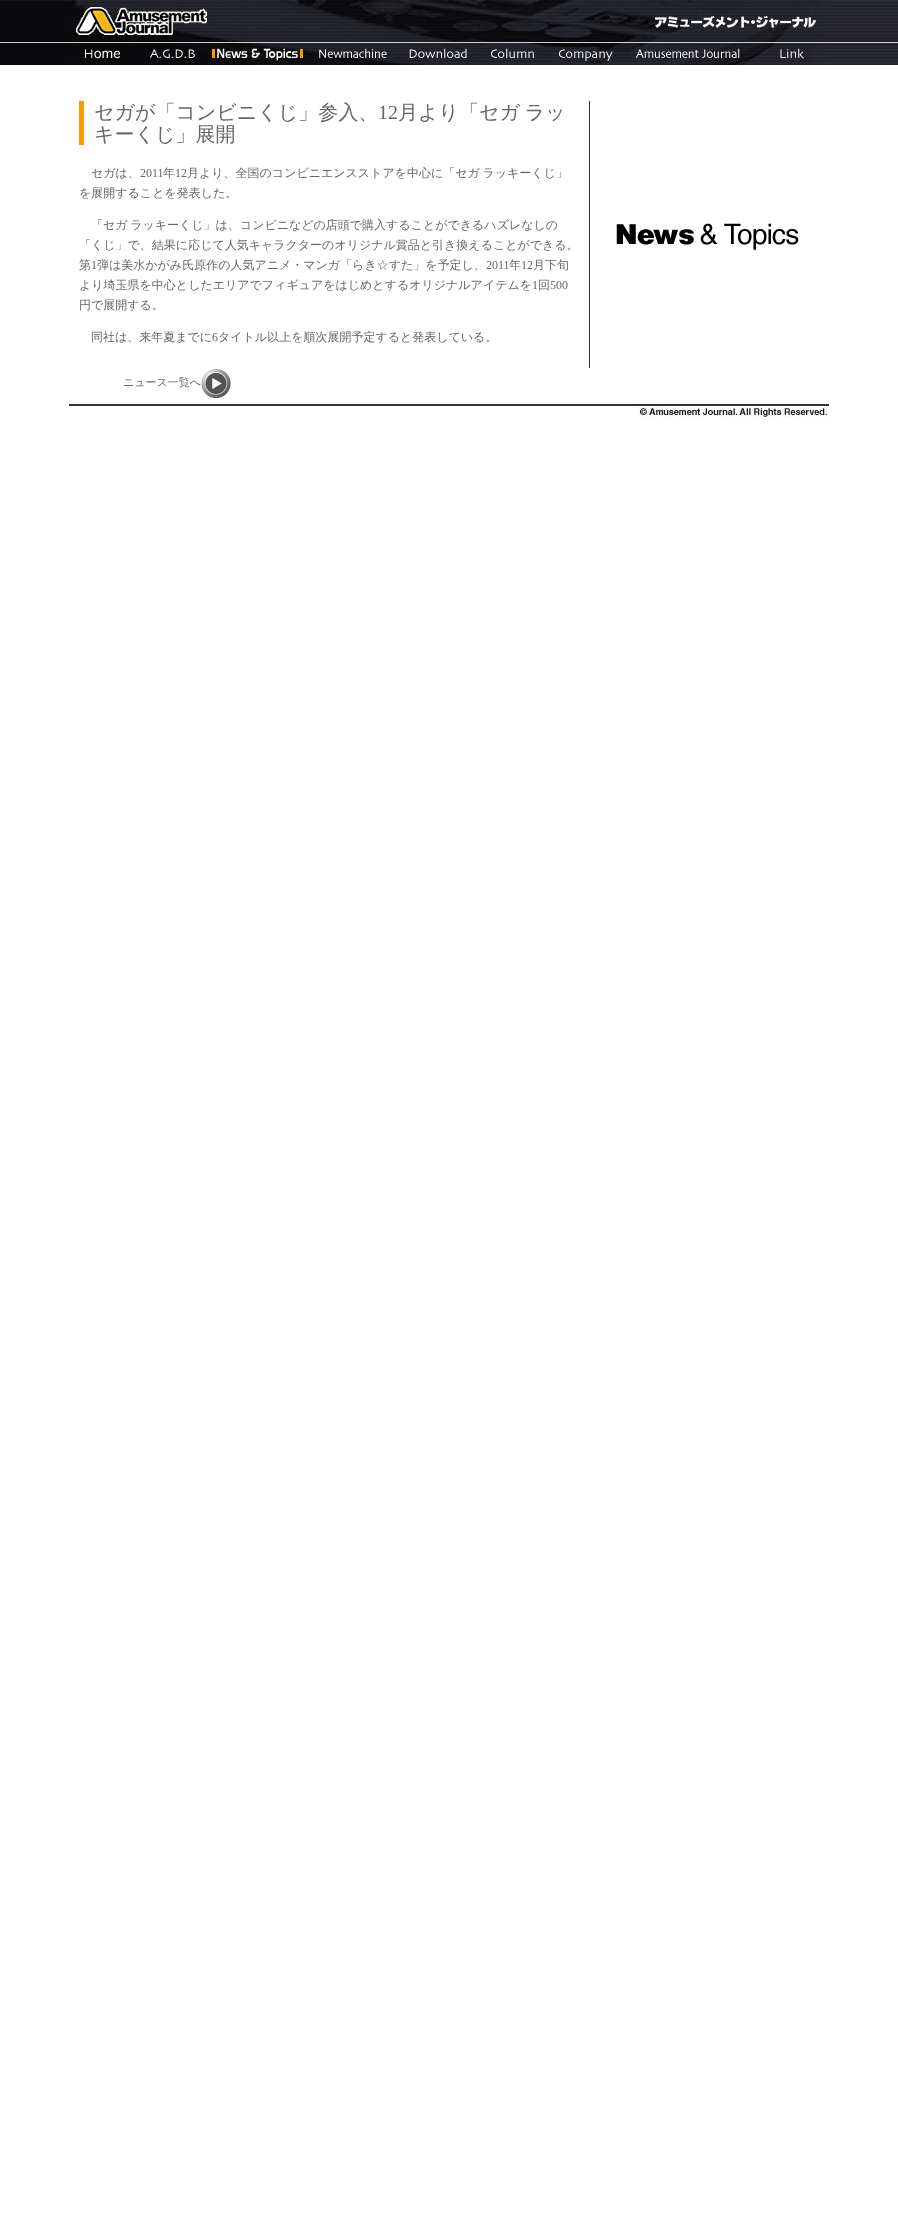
<!DOCTYPE html>
<meta charset="utf-8">
<style>body { margin: 0 } canvas { display: block }</style>
<canvas id="canvas" width="898" height="2224"></canvas>
<script type="module">
  const canvas = document.getElementById("canvas");
  const ctx = canvas.getContext("2d");
  ctx.miterLimit = 4;
  ctx.fontKerning = "normal";
  async function loadImage(src) {
    const img = new Image();
    img.src = src;
    await img.decode();
    return img;
  }

  ctx.fillStyle = "#ffffff";
  ctx.fillRect(0, 0, 898, 2224);
  ctx.drawImage(await loadImage("img1.png"), 0, 0, 69, 65);
  ctx.drawImage(await loadImage("img2.png"), 67, 0, 2, 1);
  ctx.drawImage(await loadImage("img3.png"), 69, 0, 144, 43);
  ctx.drawImage(await loadImage("img4.png"), 213, 0, 616, 43);
  ctx.drawImage(await loadImage("img5.png"), 69, 43, 67, 22);
  ctx.drawImage(await loadImage("img6.png"), 136, 43, 74, 22);
  ctx.drawImage(await loadImage("img7.png"), 210, 43, 97, 22);
  ctx.drawImage(await loadImage("img8.png"), 307, 43, 90, 22);
  ctx.drawImage(await loadImage("img9.png"), 397, 43, 81, 22);
  ctx.drawImage(await loadImage("img10.png"), 478, 43, 69, 22);
  ctx.drawImage(await loadImage("img11.png"), 547, 43, 77, 22);
  ctx.drawImage(await loadImage("img12.png"), 624, 43, 132, 22);
  ctx.drawImage(await loadImage("img13.png"), 756, 43, 73, 22);
  ctx.drawImage(await loadImage("img14.png"), 829, 0, 69, 65);
  ctx.fillStyle = "#ff9900";
  ctx.fillRect(79, 101, 5, 44);
  ctx.font = "500 20px WenQuanYi Zen Hei";
  ctx.fillStyle = "#666666";
  ctx.fillText("セガが「コンビニくじ」参入、", 94, 119);
  ctx.font = "20px Liberation Serif";
  ctx.fillText("12", 378, 119);
  ctx.wordSpacing = "-1px";
  ctx.font = "500 20px WenQuanYi Zen Hei";
  ctx.fillText("月より「セガ ラッ", 398, 119);
  ctx.wordSpacing = "0px";
  ctx.fillText("キーくじ」展開", 94, 141);
  ctx.font = "500 12px WenQuanYi Zen Hei";
  ctx.fillText("セガは、", 91, 177);
  ctx.font = "12px Liberation Serif";
  ctx.fillText("2011", 140, 177);
  ctx.font = "500 12px WenQuanYi Zen Hei";
  ctx.fillText("年", 163, 177);
  ctx.font = "12px Liberation Serif";
  ctx.fillText("12", 175, 177);
  ctx.wordSpacing = "-1px";
  ctx.font = "500 12px WenQuanYi Zen Hei";
  ctx.fillText("月より、全国のコンビニエンスストアを中心に「セガ ラッキーくじ」", 187, 177);
  ctx.wordSpacing = "0px";
  ctx.fillText("を展開することを発表した。", 79, 197);
  ctx.wordSpacing = "-1px";
  ctx.fillText("「セガ ラッキーくじ」は、コンビニなどの店頭で購入することができるハズレなしの", 91, 229);
  ctx.wordSpacing = "0px";
  ctx.fillText("「くじ」で、結果に応じて人気キャラクターのオリジナル賞品と引き換えることができる。", 79, 249);
  ctx.fillText("第", 79, 269);
  ctx.font = "12px Liberation Serif";
  ctx.fillText("1", 91, 269);
  ctx.font = "500 12px WenQuanYi Zen Hei";
  ctx.fillText("弾は美水かがみ氏原作の人気アニメ・マンガ「らき☆すた」を予定し、", 97, 269);
  ctx.font = "12px Liberation Serif";
  ctx.fillText("2011", 486, 269);
  ctx.font = "500 12px WenQuanYi Zen Hei";
  ctx.fillText("年", 509, 269);
  ctx.font = "12px Liberation Serif";
  ctx.fillText("12", 521, 269);
  ctx.font = "500 12px WenQuanYi Zen Hei";
  ctx.fillText("月下旬", 533, 269);
  ctx.fillText("より埼玉県を中心としたエリアでフィギュアをはじめとするオリジナルアイテムを", 79, 289);
  ctx.font = "12px Liberation Serif";
  ctx.fillText("1", 532, 289);
  ctx.font = "500 12px WenQuanYi Zen Hei";
  ctx.fillText("回", 538, 289);
  ctx.font = "12px Liberation Serif";
  ctx.fillText("500", 550, 289);
  ctx.font = "500 12px WenQuanYi Zen Hei";
  ctx.fillText("円で展開する。", 79, 309);
  ctx.fillText("同社は、来年夏までに", 91, 341);
  ctx.font = "12px Liberation Serif";
  ctx.fillText("6", 212, 341);
  ctx.font = "500 12px WenQuanYi Zen Hei";
  ctx.fillText("タイトル以上を順次展開予定すると発表している。", 218, 341);
  ctx.fillStyle = "#333333";
  ctx.fillRect(589, 101, 1, 267);
  ctx.drawImage(await loadImage("img15.png"), 616, 223, 183, 27);
  ctx.font = "500 11px WenQuanYi Zen Hei";
  ctx.fillStyle = "#666666";
  ctx.fillText("ニュース一覧へ", 123, 386);
  ctx.drawImage(await loadImage("img16.png"), 201, 369, 30, 29);
  ctx.drawImage(await loadImage("img17.png"), 69, 404, 760, 14);
</script>
